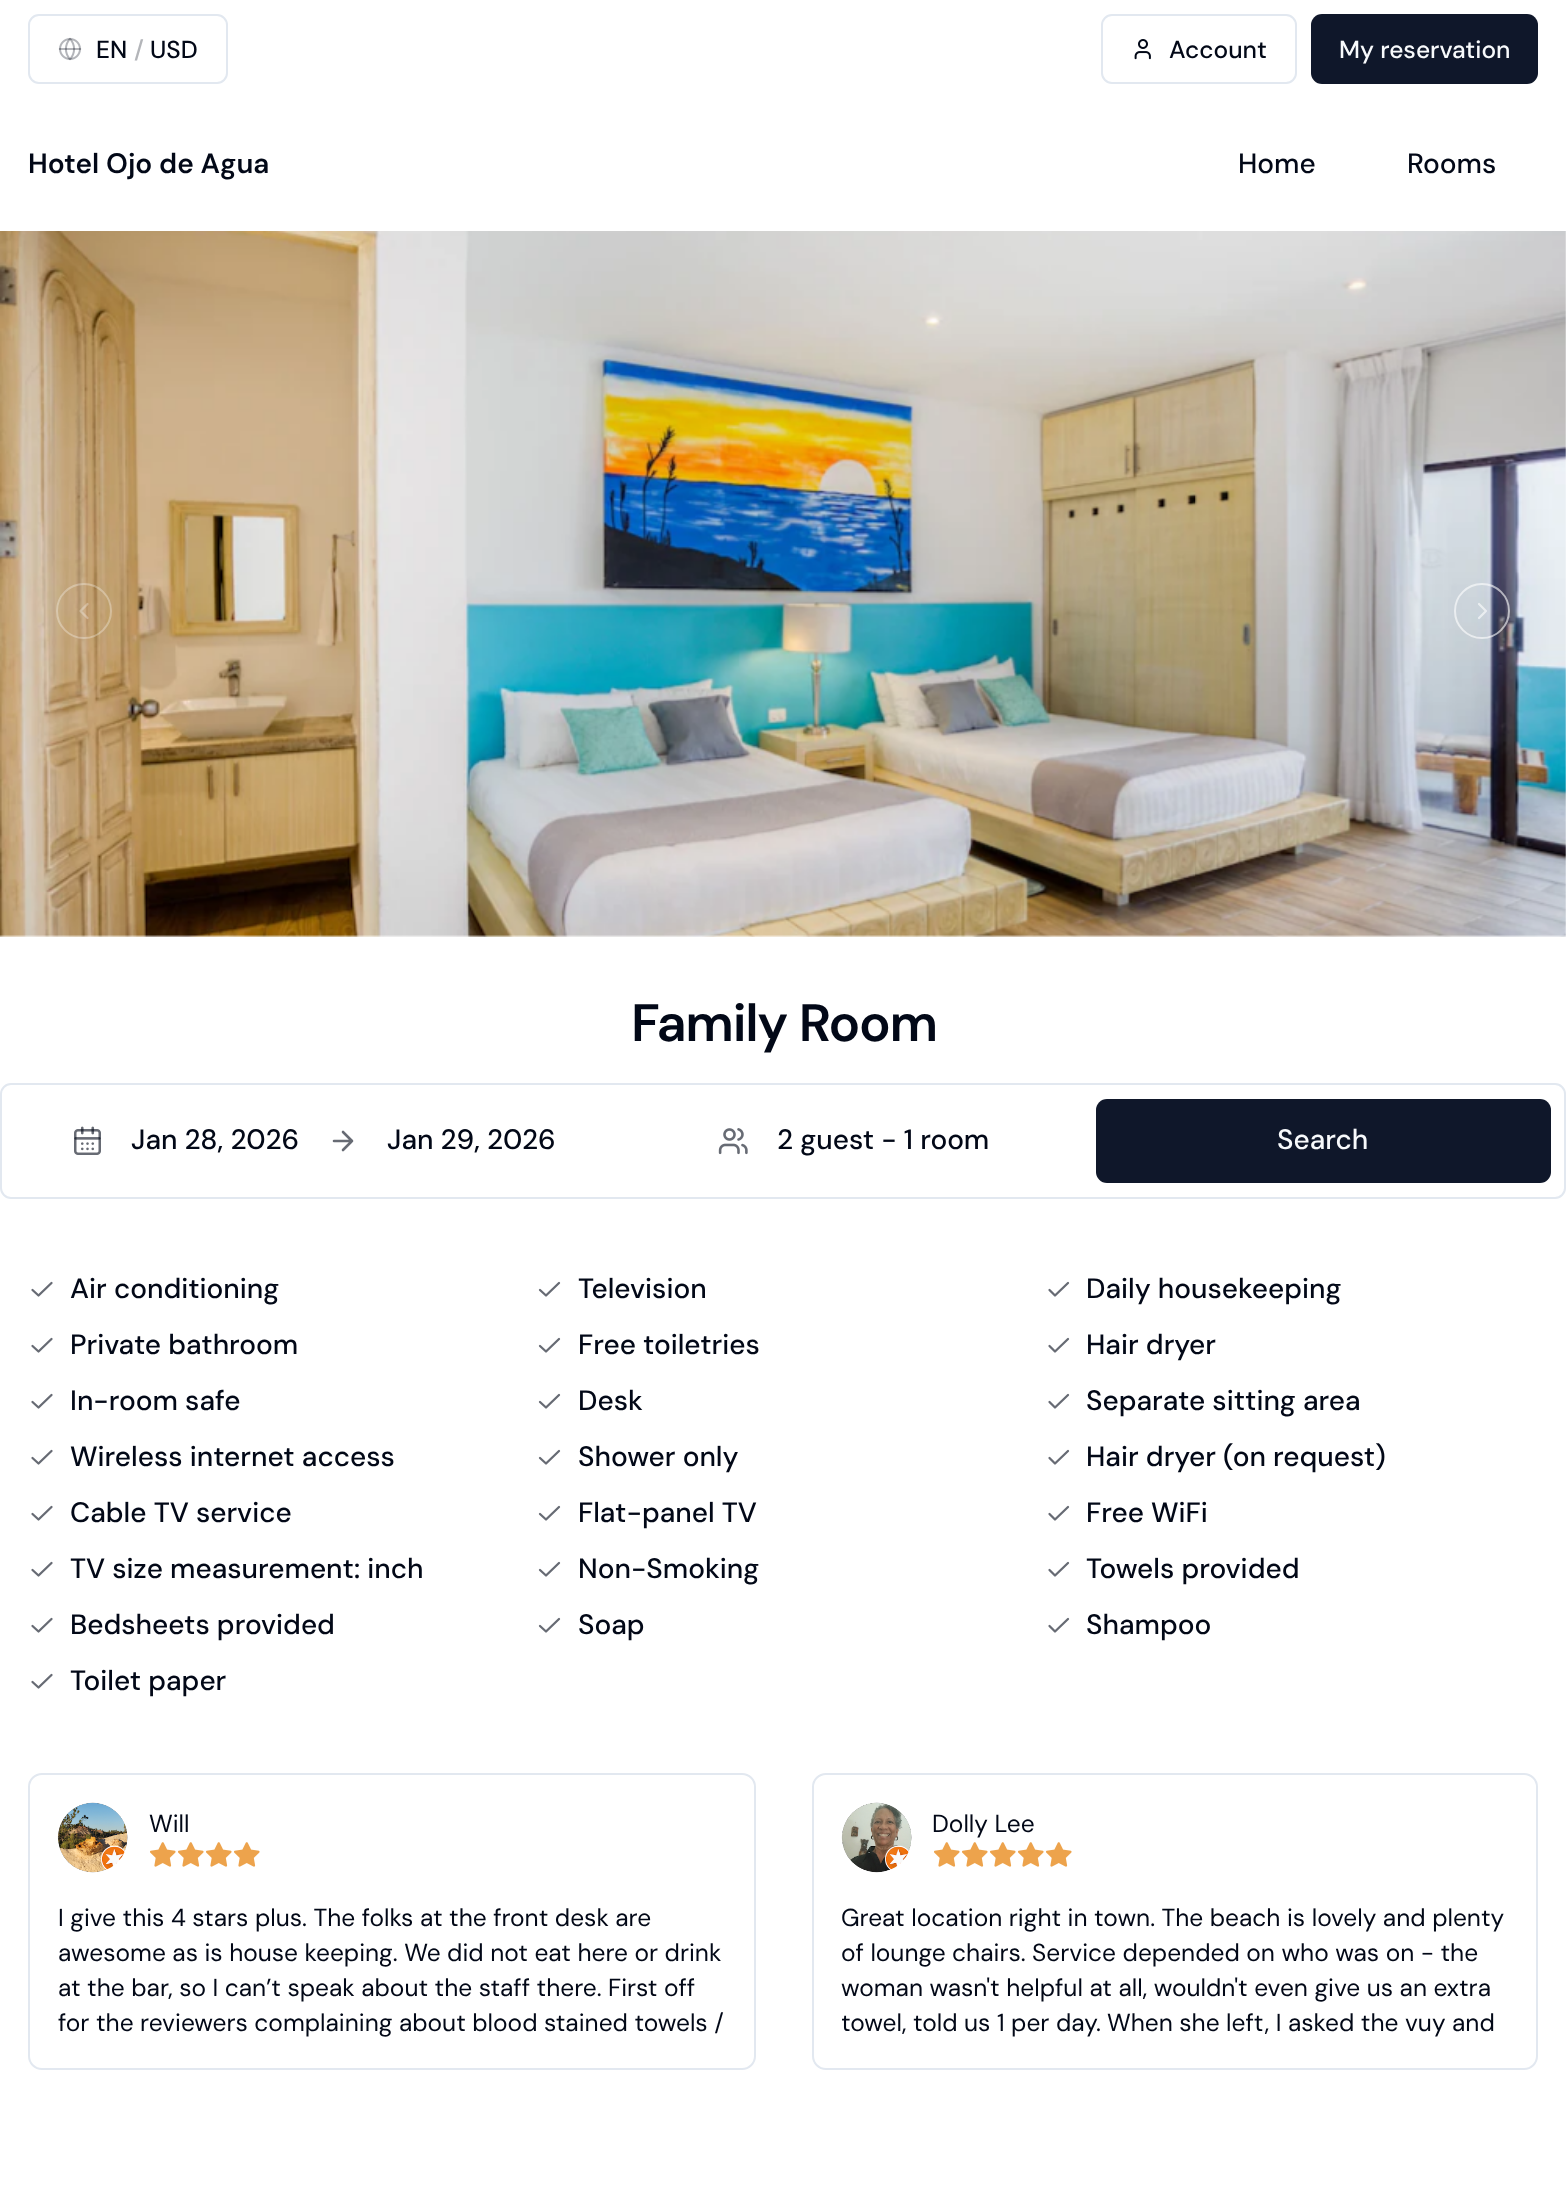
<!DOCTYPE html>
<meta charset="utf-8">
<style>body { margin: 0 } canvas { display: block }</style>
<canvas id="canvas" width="1566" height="2212"></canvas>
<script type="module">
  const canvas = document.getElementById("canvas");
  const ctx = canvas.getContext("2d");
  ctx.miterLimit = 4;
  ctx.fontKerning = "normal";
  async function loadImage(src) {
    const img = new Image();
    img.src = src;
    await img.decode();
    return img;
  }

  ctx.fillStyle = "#ffffff";
  ctx.fillRect(0, 0, 1566, 2212);
  ctx.beginPath();
  ctx.roundRect(29, 15, 198, 68, 10);
  ctx.strokeStyle = "#e2e8f0";
  ctx.lineWidth = 2;
  ctx.stroke();
  ctx.drawImage(await loadImage("img1.png"), 58, 37, 24, 24);
  ctx.font = "500 24.5px DM Sans";
  ctx.fillStyle = "#020817";
  ctx.fillText("EN", 96, 58);
  ctx.fillStyle = "#b3b5b9";
  ctx.fillText("/", 134, 58);
  ctx.fillStyle = "#020817";
  ctx.fillText("USD", 150, 58);
  ctx.beginPath();
  ctx.roundRect(1102, 15, 194, 68, 10);
  ctx.stroke();
  ctx.drawImage(await loadImage("img2.png"), 1134, 39, 17, 21);
  ctx.fillText("Account", 1169, 58);
  ctx.fillStyle = "#0f172a";
  ctx.beginPath();
  ctx.roundRect(1311, 14, 227, 70, 11);
  ctx.fill();
  ctx.fillStyle = "#f8fafc";
  ctx.fillText("My reservation", 1339, 58);
  ctx.font = "600 28px DM Sans";
  ctx.fillStyle = "#020817";
  ctx.fillText("Hotel Ojo de Agua", 28, 173);
  ctx.font = "500 28px DM Sans";
  ctx.fillText("Home", 1238, 173);
  ctx.fillText("Rooms", 1407, 173);
  ctx.drawImage(await loadImage("img3.png"), 0, 231, 1566, 706);
  ctx.beginPath();
  ctx.arc(84, 611, 27, 0, Math.PI * 2);
  ctx.strokeStyle = "rgba(255, 255, 255, 0.3)";
  ctx.stroke();
  ctx.beginPath();
  ctx.moveTo(87.5, 618);
  ctx.lineTo(80.5, 611);
  ctx.lineTo(87.5, 604);
  ctx.lineWidth = 2.3;
  ctx.lineCap = "round";
  ctx.lineJoin = "round";
  ctx.stroke();
  ctx.beginPath();
  ctx.arc(1482, 611, 27, 0, Math.PI * 2);
  ctx.strokeStyle = "rgba(255, 255, 255, 0.6)";
  ctx.lineWidth = 2;
  ctx.stroke();
  ctx.beginPath();
  ctx.moveTo(1479, 618);
  ctx.lineTo(1486, 611);
  ctx.lineTo(1479, 604);
  ctx.lineWidth = 2.3;
  ctx.stroke();
  ctx.letterSpacing = "-1.25px";
  ctx.font = "600 52.5px DM Sans";
  ctx.fillText("Family Room", 631, 1041);
  ctx.beginPath();
  ctx.roundRect(1, 1084, 1564, 114, 10);
  ctx.strokeStyle = "#e2e8f0";
  ctx.lineWidth = 2;
  ctx.lineJoin = "miter";
  ctx.stroke();
  ctx.drawImage(await loadImage("img4.png"), 74, 1126, 27, 29);
  ctx.letterSpacing = "0px";
  ctx.font = "500 28px DM Sans";
  ctx.fillText("Jan 28, 2026", 131, 1149);
  ctx.beginPath();
  ctx.moveTo(334, 1141);
  ctx.lineTo(352, 1141);
  ctx.moveTo(343, 1132);
  ctx.lineTo(352, 1141);
  ctx.lineTo(343, 1150);
  ctx.strokeStyle = "#676b74";
  ctx.lineWidth = 2.6;
  ctx.lineJoin = "round";
  ctx.stroke();
  ctx.fillText("Jan 29, 2026", 387, 1149);
  ctx.drawImage(await loadImage("img5.png"), 718, 1128, 30, 27);
  ctx.fillText("2 guest - 1 room", 777, 1149);
  ctx.fillStyle = "#0f172a";
  ctx.beginPath();
  ctx.roundRect(1096, 1099, 455, 84, 11);
  ctx.fill();
  ctx.fillStyle = "#f8fafc";
  ctx.fillText("Search", 1277, 1149);
  ctx.beginPath();
  ctx.moveTo(51.5, 1283);
  ctx.lineTo(38.5, 1295.5);
  ctx.lineTo(32.5, 1290);
  ctx.lineWidth = 2.3;
  ctx.stroke();
  ctx.fillStyle = "#020817";
  ctx.fillText("Air conditioning", 70, 1298);
  ctx.beginPath();
  ctx.moveTo(559, 1283);
  ctx.lineTo(546, 1295.5);
  ctx.lineTo(540, 1290);
  ctx.stroke();
  ctx.fillText("Television", 578, 1298);
  ctx.beginPath();
  ctx.moveTo(1068, 1283);
  ctx.lineTo(1055, 1295.5);
  ctx.lineTo(1049.5, 1290);
  ctx.stroke();
  ctx.fillText("Daily housekeeping", 1086, 1298);
  ctx.beginPath();
  ctx.moveTo(51.5, 1339);
  ctx.lineTo(38.5, 1351.5);
  ctx.lineTo(32.5, 1346);
  ctx.stroke();
  ctx.fillText("Private bathroom", 70, 1354);
  ctx.beginPath();
  ctx.moveTo(559, 1339);
  ctx.lineTo(546, 1351.5);
  ctx.lineTo(540, 1346);
  ctx.stroke();
  ctx.fillText("Free toiletries", 578, 1354);
  ctx.beginPath();
  ctx.moveTo(1068, 1339);
  ctx.lineTo(1055, 1351.5);
  ctx.lineTo(1049.5, 1346);
  ctx.stroke();
  ctx.fillText("Hair dryer", 1086, 1354);
  ctx.beginPath();
  ctx.moveTo(51.5, 1395);
  ctx.lineTo(38.5, 1407.5);
  ctx.lineTo(32.5, 1402);
  ctx.stroke();
  ctx.fillText("In-room safe", 70, 1410);
  ctx.beginPath();
  ctx.moveTo(559, 1395);
  ctx.lineTo(546, 1407.5);
  ctx.lineTo(540, 1402);
  ctx.stroke();
  ctx.fillText("Desk", 578, 1410);
  ctx.beginPath();
  ctx.moveTo(1068, 1395);
  ctx.lineTo(1055, 1407.5);
  ctx.lineTo(1049.5, 1402);
  ctx.stroke();
  ctx.fillText("Separate sitting area", 1086, 1410);
  ctx.beginPath();
  ctx.moveTo(51.5, 1451);
  ctx.lineTo(38.5, 1463.5);
  ctx.lineTo(32.5, 1458);
  ctx.stroke();
  ctx.fillText("Wireless internet access", 70, 1466);
  ctx.beginPath();
  ctx.moveTo(559, 1451);
  ctx.lineTo(546, 1463.5);
  ctx.lineTo(540, 1458);
  ctx.stroke();
  ctx.fillText("Shower only", 578, 1466);
  ctx.beginPath();
  ctx.moveTo(1068, 1451);
  ctx.lineTo(1055, 1463.5);
  ctx.lineTo(1049.5, 1458);
  ctx.stroke();
  ctx.fillText("Hair dryer (on request)", 1086, 1466);
  ctx.beginPath();
  ctx.moveTo(51.5, 1507);
  ctx.lineTo(38.5, 1519.5);
  ctx.lineTo(32.5, 1514);
  ctx.stroke();
  ctx.fillText("Cable TV service", 70, 1522);
  ctx.beginPath();
  ctx.moveTo(559, 1507);
  ctx.lineTo(546, 1519.5);
  ctx.lineTo(540, 1514);
  ctx.stroke();
  ctx.fillText("Flat-panel TV", 578, 1522);
  ctx.beginPath();
  ctx.moveTo(1068, 1507);
  ctx.lineTo(1055, 1519.5);
  ctx.lineTo(1049.5, 1514);
  ctx.stroke();
  ctx.fillText("Free WiFi", 1086, 1522);
  ctx.beginPath();
  ctx.moveTo(51.5, 1563);
  ctx.lineTo(38.5, 1575.5);
  ctx.lineTo(32.5, 1570);
  ctx.stroke();
  ctx.fillText("TV size measurement: inch", 70, 1578);
  ctx.beginPath();
  ctx.moveTo(559, 1563);
  ctx.lineTo(546, 1575.5);
  ctx.lineTo(540, 1570);
  ctx.stroke();
  ctx.fillText("Non-Smoking", 578, 1578);
  ctx.beginPath();
  ctx.moveTo(1068, 1563);
  ctx.lineTo(1055, 1575.5);
  ctx.lineTo(1049.5, 1570);
  ctx.stroke();
  ctx.fillText("Towels provided", 1086, 1578);
  ctx.beginPath();
  ctx.moveTo(51.5, 1619);
  ctx.lineTo(38.5, 1631.5);
  ctx.lineTo(32.5, 1626);
  ctx.stroke();
  ctx.fillText("Bedsheets provided", 70, 1634);
  ctx.beginPath();
  ctx.moveTo(559, 1619);
  ctx.lineTo(546, 1631.5);
  ctx.lineTo(540, 1626);
  ctx.stroke();
  ctx.fillText("Soap", 578, 1634);
  ctx.beginPath();
  ctx.moveTo(1068, 1619);
  ctx.lineTo(1055, 1631.5);
  ctx.lineTo(1049.5, 1626);
  ctx.stroke();
  ctx.fillText("Shampoo", 1086, 1634);
  ctx.beginPath();
  ctx.moveTo(51.5, 1675);
  ctx.lineTo(38.5, 1687.5);
  ctx.lineTo(32.5, 1682);
  ctx.stroke();
  ctx.fillText("Toilet paper", 70, 1690);
  ctx.beginPath();
  ctx.roundRect(29, 1774, 726, 295, 13);
  ctx.strokeStyle = "#e2e8f0";
  ctx.lineWidth = 2;
  ctx.lineJoin = "miter";
  ctx.stroke();
  ctx.drawImage(await loadImage("img6.png"), 57, 1802, 71, 71);
  ctx.font = "24.5px DM Sans";
  ctx.fillText("Will", 149, 1832);
  ctx.drawImage(await loadImage("img7.png"), 150, 1842, 26, 25);
  ctx.drawImage(await loadImage("img7.png"), 178, 1842, 26, 25);
  ctx.drawImage(await loadImage("img7.png"), 206, 1842, 26, 25);
  ctx.drawImage(await loadImage("img7.png"), 234, 1842, 26, 25);
  ctx.fillText("I give this 4 stars plus. The folks at the front desk are", 58, 1926);
  ctx.fillText("awesome as is house keeping. We did not eat here or drink", 58, 1961);
  ctx.fillText("at the bar, so I can’t speak about the staff there. First off", 58, 1996);
  ctx.fillText("for the reviewers complaining about blood stained towels /", 58, 2031);
  ctx.beginPath();
  ctx.roundRect(813, 1774, 724, 295, 13);
  ctx.stroke();
  ctx.drawImage(await loadImage("img8.png"), 841, 1802, 71, 71);
  ctx.fillText("Dolly Lee", 932, 1832);
  ctx.drawImage(await loadImage("img7.png"), 934, 1842, 26, 25);
  ctx.drawImage(await loadImage("img7.png"), 962, 1842, 26, 25);
  ctx.drawImage(await loadImage("img7.png"), 990, 1842, 26, 25);
  ctx.drawImage(await loadImage("img7.png"), 1018, 1842, 26, 25);
  ctx.drawImage(await loadImage("img7.png"), 1046, 1842, 26, 25);
  ctx.fillText("Great location right in town. The beach is lovely and plenty", 841, 1926);
  ctx.fillText("of lounge chairs. Service depended on who was on - the", 841, 1961);
  ctx.fillText("woman wasn't helpful at all, wouldn't even give us an extra", 841, 1996);
  ctx.save();
  ctx.beginPath();
  ctx.rect(842, 1901, 667, 140);
  ctx.clip();
  ctx.fillText("towel, told us 1 per day.", 841, 2031);
  ctx.restore();
  ctx.fillText("When she left, I asked the vuy and", 1107, 2031);
</script>
